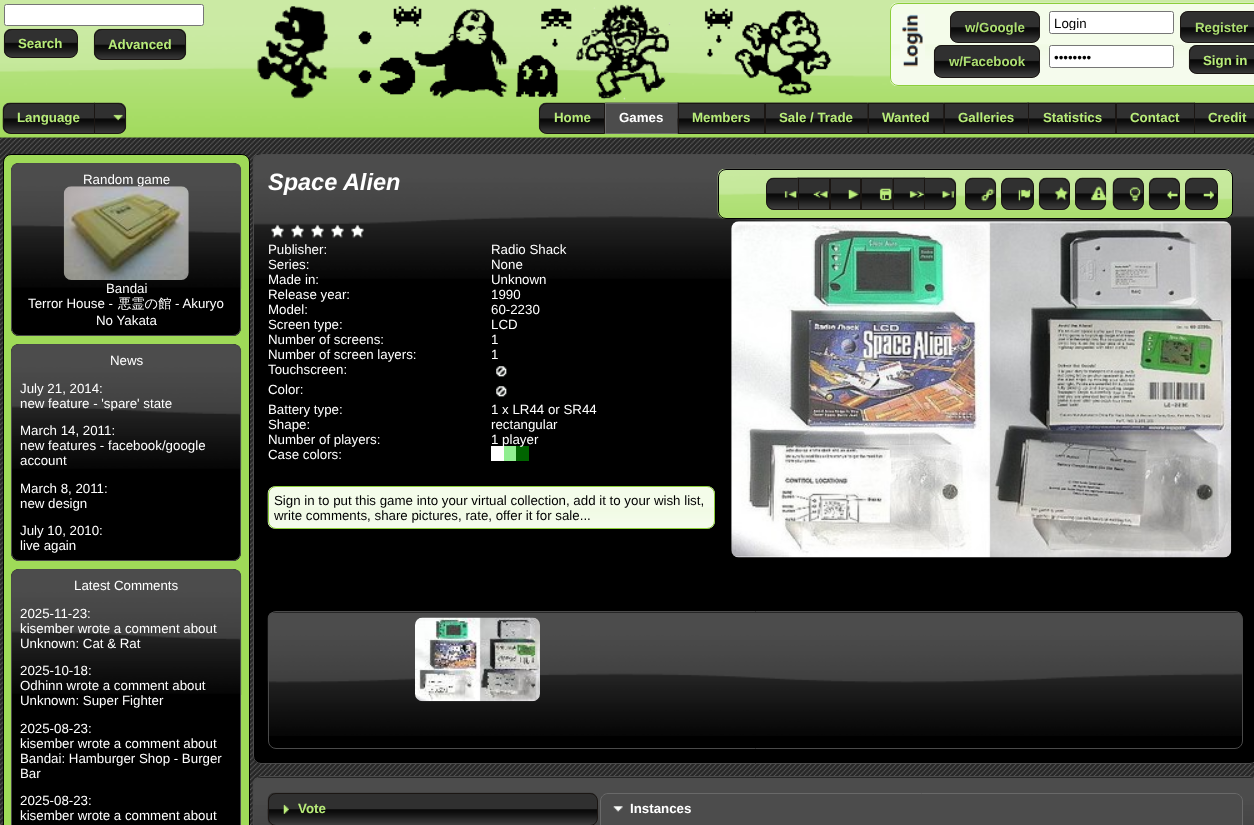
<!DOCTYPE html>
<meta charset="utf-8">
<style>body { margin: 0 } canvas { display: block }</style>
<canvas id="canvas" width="1254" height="825"></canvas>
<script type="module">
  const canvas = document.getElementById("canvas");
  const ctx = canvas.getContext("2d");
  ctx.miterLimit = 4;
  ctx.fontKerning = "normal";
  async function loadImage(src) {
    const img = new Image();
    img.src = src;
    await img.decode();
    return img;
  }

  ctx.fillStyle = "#ffffff";
  ctx.fillRect(0, 0, 1254, 825);
  ctx.drawImage(await loadImage("img1.png"), 0, 137, 1254, 688);
  ctx.drawImage(await loadImage("img2.png"), 0, 0, 1254, 138);
  ctx.beginPath();
  ctx.roundRect(4.5, 4.5, 199, 21, 2);
  ctx.fill();
  ctx.strokeStyle = "#767676";
  ctx.stroke();
  ctx.drawImage(await loadImage("img3.png"), 3, 28, 75, 30);
  ctx.beginPath();
  ctx.roundRect(4.5, 29.5, 73, 28, 7.5);
  ctx.strokeStyle = "#1b1613";
  ctx.stroke();
  ctx.font = "bold 13.3px Liberation Sans";
  ctx.fillStyle = "#b8ec79";
  ctx.fillText("Search", 18, 48);
  ctx.drawImage(await loadImage("img4.png"), 93, 28, 94, 32);
  ctx.beginPath();
  ctx.roundRect(94.5, 29.5, 91, 30, 7.5);
  ctx.stroke();
  ctx.fillText("Advanced", 108, 49);
  ctx.drawImage(await loadImage("img5.png"), 257, 4, 575, 96);
  ctx.drawImage(await loadImage("img6.png"), 890, 2, 364, 85);
  ctx.beginPath();
  ctx.roundRect(890.5, 3.5, 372, 82, 7.5);
  ctx.strokeStyle = "#8cce3b";
  ctx.stroke();
  ctx.drawImage(await loadImage("img7.png"), 900, 14, 25, 53);
  ctx.drawImage(await loadImage("img8.png"), 950, 11, 90, 32);
  ctx.beginPath();
  ctx.roundRect(950.5, 11.5, 89, 31, 7.5);
  ctx.strokeStyle = "#1b1613";
  ctx.stroke();
  ctx.fillStyle = "#addf72";
  ctx.fillText("w/Google", 965, 32);
  ctx.fillStyle = "#ffffff";
  ctx.beginPath();
  ctx.roundRect(1049.5, 11.5, 124, 22, 2);
  ctx.fill();
  ctx.strokeStyle = "#767676";
  ctx.stroke();
  ctx.save();
  ctx.beginPath();
  ctx.rect(1054, 15, 115, 15);
  ctx.clip();
  ctx.font = "13.3px Liberation Sans";
  ctx.fillStyle = "#000000";
  ctx.fillText("Login", 1054, 28);
  ctx.restore();
  ctx.drawImage(await loadImage("img9.png"), 1180, 11, 74, 32);
  ctx.beginPath();
  ctx.roundRect(1180.5, 11.5, 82, 31, 7.5);
  ctx.strokeStyle = "#1b1613";
  ctx.stroke();
  ctx.fillStyle = "#addf72";
  ctx.fillText("Register", 1195, 32);
  ctx.drawImage(await loadImage("img10.png"), 933, 45, 107, 33);
  ctx.beginPath();
  ctx.roundRect(934.5, 45.5, 105, 32, 7.5);
  ctx.stroke();
  ctx.fillText("w/Facebook", 949, 66);
  ctx.fillStyle = "#ffffff";
  ctx.beginPath();
  ctx.roundRect(1049.5, 45.5, 124, 22, 2);
  ctx.fill();
  ctx.strokeStyle = "#767676";
  ctx.stroke();
  ctx.font = "13.3px Liberation Sans";
  ctx.fillStyle = "#000000";
  ctx.fillText("••••••••", 1054, 62);
  ctx.drawImage(await loadImage("img11.png"), 1188, 45, 66, 29);
  ctx.beginPath();
  ctx.roundRect(1189.5, 45.5, 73, 28, 7.5);
  ctx.strokeStyle = "#1b1613";
  ctx.stroke();
  ctx.font = "bold 13.3px Liberation Sans";
  ctx.fillStyle = "#b8ec79";
  ctx.fillText("Sign in", 1203, 65);
  ctx.drawImage(await loadImage("img12.png"), 2, 102, 93, 32);
  ctx.beginPath();
  ctx.roundRect(3.5, 103.5, 91, 30, [7.5, 0, 0, 7.5]);
  ctx.stroke();
  ctx.fillText("Language", 17, 122);
  ctx.drawImage(await loadImage("img13.png"), 94, 102, 33, 32);
  ctx.beginPath();
  ctx.roundRect(94.5, 103.5, 31, 30, [0, 7.5, 7.5, 0]);
  ctx.stroke();
  ctx.drawImage(await loadImage("img14.png"), 113, 114, 10, 7);
  ctx.drawImage(await loadImage("img15.png"), 538, 102, 67, 32);
  ctx.beginPath();
  ctx.roundRect(539.5, 103.5, 65, 30, [7.5, 0, 0, 7.5]);
  ctx.stroke();
  ctx.fillText("Home", 554, 122);
  ctx.fillStyle = "#4c4c4c";
  ctx.beginPath();
  ctx.rect(605.5, 103.5, 73, 30);
  ctx.fill();
  ctx.strokeStyle = "#696969";
  ctx.stroke();
  ctx.drawImage(await loadImage("img16.png"), 605, 102, 74, 1);
  ctx.fillStyle = "#ffffff";
  ctx.fillText("Games", 619, 122);
  ctx.drawImage(await loadImage("img17.png"), 677, 102, 88, 32);
  ctx.strokeStyle = "#1b1613";
  ctx.strokeRect(678.5, 103.5, 86, 30);
  ctx.fillStyle = "#b8ec79";
  ctx.fillText("Members", 692, 122);
  ctx.drawImage(await loadImage("img18.png"), 765, 102, 103, 31);
  ctx.strokeRect(765.5, 103.5, 102, 30);
  ctx.fillText("Sale / Trade", 779, 122);
  ctx.drawImage(await loadImage("img19.png"), 867, 102, 77, 32);
  ctx.strokeRect(868.5, 103.5, 75, 30);
  ctx.fillText("Wanted", 882, 122);
  ctx.drawImage(await loadImage("img20.png"), 943, 102, 86, 32);
  ctx.strokeRect(944.5, 103.5, 84, 30);
  ctx.fillText("Galleries", 958, 122);
  ctx.drawImage(await loadImage("img21.png"), 1027, 102, 90, 32);
  ctx.strokeRect(1028.5, 103.5, 87, 30);
  ctx.fillText("Statistics", 1043, 122);
  ctx.drawImage(await loadImage("img22.png"), 1116, 102, 79, 31);
  ctx.strokeRect(1116.5, 103.5, 78, 30);
  ctx.fillText("Contact", 1130, 122);
  ctx.drawImage(await loadImage("img23.png"), 1194, 102, 60, 32);
  ctx.strokeRect(1194.5, 103.5, 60, 30);
  ctx.fillText("Credit", 1208, 122);
  ctx.fillStyle = "#9fda58";
  ctx.beginPath();
  ctx.roundRect(3.5, 154.5, 246, 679, 7.5);
  ctx.fill();
  ctx.strokeStyle = "#000000";
  ctx.stroke();
  ctx.fillStyle = "#000000";
  ctx.beginPath();
  ctx.roundRect(11, 163, 230, 173, 8);
  ctx.fill();
  ctx.drawImage(await loadImage("img24.png"), 11, 163, 231, 126);
  ctx.beginPath();
  ctx.roundRect(11.5, 163.5, 229, 172, 7.5);
  ctx.strokeStyle = "#4a4a4a";
  ctx.stroke();
  ctx.font = "13.3px Liberation Sans";
  ctx.fillStyle = "#ffffff";
  ctx.fillText("Random game", 83, 184);
  ctx.drawImage(await loadImage("img25.png"), 63, 186, 126, 94);
  ctx.fillText("Bandai", 106, 293);
  ctx.fillText("Terror House -", 28, 308);
  ctx.font = "500 13.3px WenQuanYi Zen Hei";
  ctx.fillText("悪霊の館", 118, 308);
  ctx.font = "13.3px Liberation Sans";
  ctx.fillText("- Akuryo", 175, 308);
  ctx.fillText("No Yakata", 96, 325);
  ctx.fillStyle = "#000000";
  ctx.beginPath();
  ctx.roundRect(11, 344, 230, 217, 8);
  ctx.fill();
  ctx.drawImage(await loadImage("img26.png"), 11, 345, 231, 125);
  ctx.beginPath();
  ctx.roundRect(11.5, 344.5, 229, 216, 7.5);
  ctx.stroke();
  ctx.fillStyle = "#ffffff";
  ctx.fillText("News", 110, 365);
  ctx.fillText("July 21, 2014:", 20, 393);
  ctx.fillText("new feature - 'spare' state", 20, 408);
  ctx.fillText("March 14, 2011:", 20, 435);
  ctx.fillText("new features - facebook/google", 20, 450);
  ctx.fillText("account", 20, 465);
  ctx.fillText("March 8, 2011:", 20, 493);
  ctx.fillText("new design", 20, 508);
  ctx.fillText("July 10, 2010:", 20, 535);
  ctx.fillText("live again", 20, 550);
  ctx.fillStyle = "#000000";
  ctx.beginPath();
  ctx.roundRect(11, 569, 230, 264, 8);
  ctx.fill();
  ctx.drawImage(await loadImage("img27.png"), 11, 570, 231, 125);
  ctx.beginPath();
  ctx.roundRect(11.5, 569.5, 229, 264, 7.5);
  ctx.stroke();
  ctx.fillStyle = "#ffffff";
  ctx.fillText("Latest Comments", 74, 590);
  ctx.fillText("2025-11-23:", 20, 618);
  ctx.fillText("kisember wrote a comment about", 20, 633);
  ctx.fillText("Unknown: Cat & Rat", 20, 648);
  ctx.fillText("2025-10-18:", 20, 675);
  ctx.fillText("Odhinn wrote a comment about", 20, 690);
  ctx.fillText("Unknown: Super Fighter", 20, 705);
  ctx.fillText("2025-08-23:", 20, 733);
  ctx.fillText("kisember wrote a comment about", 20, 748);
  ctx.fillText("Bandai: Hamburger Shop - Burger", 20, 763);
  ctx.fillText("Bar", 20, 778);
  ctx.fillText("2025-08-23:", 20, 805);
  ctx.fillText("kisember wrote a comment about", 20, 820);
  ctx.fillStyle = "#000000";
  ctx.beginPath();
  ctx.roundRect(253, 154, 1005, 610, 8);
  ctx.fill();
  ctx.drawImage(await loadImage("img28.png"), 252, 155, 1002, 125);
  ctx.beginPath();
  ctx.roundRect(253.5, 154.5, 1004, 609, 7.5);
  ctx.stroke();
  ctx.font = "italic bold 23.5px Liberation Sans";
  ctx.fillStyle = "#ffffff";
  ctx.fillText("Space Alien", 268, 190);
  ctx.drawImage(await loadImage("img29.png"), 717, 168, 516, 51);
  ctx.beginPath();
  ctx.roundRect(718.5, 169.5, 514, 49, 7.5);
  ctx.strokeStyle = "#000000";
  ctx.stroke();
  ctx.drawImage(await loadImage("img30.png"), 766, 177, 33, 33);
  ctx.beginPath();
  ctx.roundRect(766.5, 178.5, 32, 31, [7.5, 0, 0, 7.5]);
  ctx.strokeStyle = "#1b1613";
  ctx.stroke();
  ctx.drawImage(await loadImage("img31.png"), 784, 191, 13, 7);
  ctx.drawImage(await loadImage("img32.png"), 797, 177, 33, 33);
  ctx.strokeRect(798.5, 178.5, 31, 31);
  ctx.drawImage(await loadImage("img33.png"), 813, 191, 15, 7);
  ctx.drawImage(await loadImage("img34.png"), 830, 177, 32, 32);
  ctx.strokeRect(830.5, 178.5, 30, 31);
  ctx.drawImage(await loadImage("img35.png"), 848, 189, 11, 10);
  ctx.drawImage(await loadImage("img36.png"), 861, 177, 32, 32);
  ctx.strokeRect(861.5, 178.5, 31, 31);
  ctx.drawImage(await loadImage("img37.png"), 879, 188, 13, 13);
  ctx.drawImage(await loadImage("img38.png"), 892, 177, 33, 33);
  ctx.strokeRect(893.5, 178.5, 31, 31);
  ctx.drawImage(await loadImage("img39.png"), 909, 191, 15, 7);
  ctx.drawImage(await loadImage("img40.png"), 923, 177, 34, 33);
  ctx.beginPath();
  ctx.roundRect(924.5, 178.5, 31, 31, [0, 7.5, 7.5, 0]);
  ctx.stroke();
  ctx.drawImage(await loadImage("img41.png"), 942, 191, 12, 7);
  ctx.drawImage(await loadImage("img42.png"), 965, 177, 32, 33);
  ctx.beginPath();
  ctx.roundRect(965.5, 178.5, 30, 31, 7.5);
  ctx.stroke();
  ctx.drawImage(await loadImage("img43.png"), 981, 188, 14, 14);
  ctx.drawImage(await loadImage("img44.png"), 1001, 177, 33, 33);
  ctx.beginPath();
  ctx.roundRect(1001.5, 178.5, 32, 31, 7.5);
  ctx.stroke();
  ctx.drawImage(await loadImage("img45.png"), 1018, 189, 13, 13);
  ctx.drawImage(await loadImage("img46.png"), 1038, 177, 32, 33);
  ctx.beginPath();
  ctx.roundRect(1039.5, 178.5, 30, 31, 7.5);
  ctx.stroke();
  ctx.drawImage(await loadImage("img47.png"), 1054, 187, 14, 14);
  ctx.drawImage(await loadImage("img48.png"), 1075, 177, 32, 33);
  ctx.beginPath();
  ctx.roundRect(1075.5, 178.5, 30, 31, 7.5);
  ctx.stroke();
  ctx.drawImage(await loadImage("img49.png"), 1091, 186, 16, 15);
  ctx.drawImage(await loadImage("img50.png"), 1112, 177, 32, 33);
  ctx.beginPath();
  ctx.roundRect(1113.5, 178.5, 30, 31, 7.5);
  ctx.stroke();
  ctx.drawImage(await loadImage("img51.png"), 1129, 187, 12, 15);
  ctx.drawImage(await loadImage("img52.png"), 1148, 177, 32, 33);
  ctx.beginPath();
  ctx.roundRect(1149.5, 178.5, 30, 31, 7.5);
  ctx.stroke();
  ctx.drawImage(await loadImage("img53.png"), 1167, 191, 11, 8);
  ctx.drawImage(await loadImage("img54.png"), 1185, 177, 33, 33);
  ctx.beginPath();
  ctx.roundRect(1185.5, 178.5, 32, 31, 7.5);
  ctx.stroke();
  ctx.drawImage(await loadImage("img55.png"), 1203, 191, 11, 8);
  ctx.drawImage(await loadImage("img56.png"), 271, 224, 13, 14);
  ctx.drawImage(await loadImage("img57.png"), 291, 224, 13, 14);
  ctx.drawImage(await loadImage("img58.png"), 311, 224, 13, 14);
  ctx.drawImage(await loadImage("img59.png"), 331, 224, 13, 14);
  ctx.drawImage(await loadImage("img60.png"), 351, 224, 13, 14);
  ctx.font = "13.3px Liberation Sans";
  ctx.fillText("Publisher:", 268, 254);
  ctx.fillText("Radio Shack", 491, 254);
  ctx.fillText("Series:", 268, 269);
  ctx.fillText("None", 491, 269);
  ctx.fillText("Made in:", 268, 284);
  ctx.fillText("Unknown", 491, 284);
  ctx.fillText("Release year:", 268, 299);
  ctx.fillText("1990", 491, 299);
  ctx.fillText("Model:", 268, 314);
  ctx.fillText("60-2230", 491, 314);
  ctx.fillText("Screen type:", 268, 329);
  ctx.fillText("LCD", 491, 329);
  ctx.fillText("Number of screens:", 268, 344);
  ctx.fillText("1", 491, 344);
  ctx.fillText("Number of screen layers:", 268, 359);
  ctx.fillText("1", 491, 359);
  ctx.fillText("Touchscreen:", 268, 374);
  ctx.drawImage(await loadImage("img61.png"), 496, 366, 11, 11);
  ctx.fillText("Color:", 268, 394);
  ctx.drawImage(await loadImage("img61.png"), 496, 386, 11, 11);
  ctx.fillText("Battery type:", 268, 414);
  ctx.fillText("1 x LR44 or SR44", 491, 414);
  ctx.fillText("Shape:", 268, 429);
  ctx.fillText("rectangular", 491, 429);
  ctx.fillText("Number of players:", 268, 444);
  ctx.fillRect(491, 446, 13, 15);
  ctx.fillStyle = "#90ee90";
  ctx.fillRect(504, 446, 12, 15);
  ctx.fillStyle = "#006400";
  ctx.fillRect(516, 446, 13, 15);
  ctx.fillStyle = "#ffffff";
  ctx.fillText("1 player", 491, 444);
  ctx.fillText("Case colors:", 268, 459);
  ctx.drawImage(await loadImage("img62.png"), 267, 486, 448, 43);
  ctx.beginPath();
  ctx.roundRect(268.5, 486.5, 446, 42, 7.5);
  ctx.strokeStyle = "#8cce3b";
  ctx.stroke();
  ctx.fillStyle = "#000000";
  ctx.fillText("Sign in to put this game into your virtual collection, add it to your wish list,", 274, 505);
  ctx.fillText("write comments, share pictures, rate, offer it for sale...", 274, 520);
  ctx.drawImage(await loadImage("img63.png"), 731, 221, 501, 337);
  ctx.drawImage(await loadImage("img64.png"), 267, 612, 976, 124);
  ctx.beginPath();
  ctx.roundRect(268.5, 611.5, 974, 137, 7.5);
  ctx.strokeStyle = "#4a4a4a";
  ctx.stroke();
  ctx.drawImage(await loadImage("img65.png"), 415, 617, 125, 85);
  ctx.beginPath();
  ctx.roundRect(253, 776, 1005, 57, 8);
  ctx.fill();
  ctx.drawImage(await loadImage("img66.png"), 252, 777, 1002, 48);
  ctx.beginPath();
  ctx.roundRect(253.5, 776.5, 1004, 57, 7.5);
  ctx.stroke();
  ctx.drawImage(await loadImage("img67.png"), 267, 792, 331, 33);
  ctx.beginPath();
  ctx.roundRect(268.5, 793.5, 329, 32, 7.5);
  ctx.strokeStyle = "#1b1613";
  ctx.stroke();
  ctx.drawImage(await loadImage("img68.png"), 283, 804, 6, 10);
  ctx.font = "bold 13.3px Liberation Sans";
  ctx.fillStyle = "#b8ec79";
  ctx.fillText("Vote", 298, 813);
  ctx.fillStyle = "#4c4c4c";
  ctx.beginPath();
  ctx.moveTo(608, 793.5);
  ctx.lineTo(1235, 793.5);
  ctx.bezierCurveTo(1239, 793.5, 1242.5, 797, 1242.5, 801);
  ctx.lineTo(1242.5, 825.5);
  ctx.lineTo(600.5, 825.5);
  ctx.lineTo(600.5, 801);
  ctx.bezierCurveTo(600.5, 797, 604, 793.5, 608, 793.5);
  ctx.closePath();
  ctx.fill();
  ctx.strokeStyle = "#696969";
  ctx.stroke();
  ctx.drawImage(await loadImage("img69.png"), 613, 806, 10, 6);
  ctx.fillStyle = "#ffffff";
  ctx.fillText("Instances", 630, 813);
</script>
